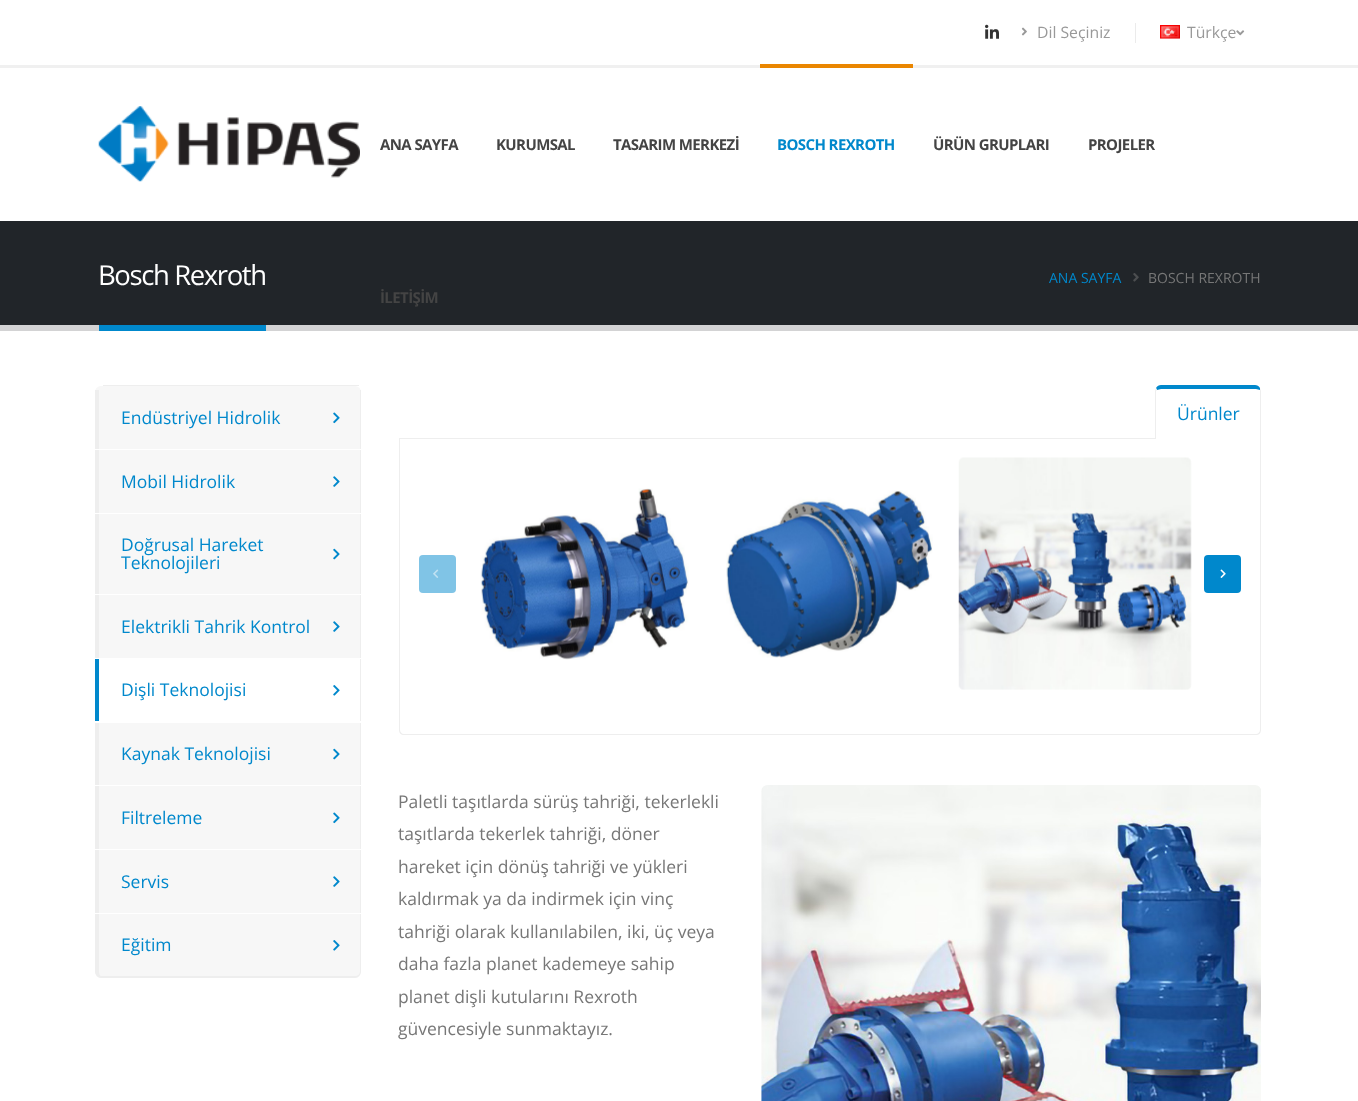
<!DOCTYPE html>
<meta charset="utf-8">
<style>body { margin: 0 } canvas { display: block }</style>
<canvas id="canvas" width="1358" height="1101"></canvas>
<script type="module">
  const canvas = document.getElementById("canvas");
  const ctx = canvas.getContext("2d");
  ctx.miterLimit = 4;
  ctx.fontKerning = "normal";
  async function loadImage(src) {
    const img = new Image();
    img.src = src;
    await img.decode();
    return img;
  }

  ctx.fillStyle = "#ffffff";
  ctx.fillRect(0, 0, 1358, 1101);
  ctx.fillStyle = "#f0f0f0";
  ctx.fillRect(0, 65, 1358, 3);
  ctx.drawImage(await loadImage("img1.png"), 985, 24, 14, 15);
  ctx.drawImage(await loadImage("img2.png"), 1021, 27, 6, 9);
  ctx.font = "15.75px Open Sans";
  ctx.fillStyle = "#999999";
  ctx.fillText("Dil Seçiniz", 1037, 38);
  ctx.fillStyle = "#ebebeb";
  ctx.fillRect(1135, 23, 1, 20);
  ctx.drawImage(await loadImage("img3.png"), 1160, 25, 20, 14);
  ctx.fillStyle = "#999999";
  ctx.fillText("Türkçe", 1187, 38);
  ctx.drawImage(await loadImage("img4.png"), 1236, 30, 9, 6);
  ctx.drawImage(await loadImage("img5.png"), 98, 106, 262, 76);
  ctx.letterSpacing = "-0.6px";
  ctx.font = "bold 15px Open Sans";
  ctx.fillStyle = "#444444";
  ctx.fillText("ANA SAYFA", 380, 150);
  ctx.fillText("KURUMSAL", 496, 150);
  ctx.fillText("TASARIM MERKEZİ", 613, 150);
  ctx.fillStyle = "#ea8600";
  ctx.fillRect(760, 64, 153, 4);
  ctx.fillStyle = "#0088cc";
  ctx.fillText("BOSCH REXROTH", 777, 150);
  ctx.fillStyle = "#444444";
  ctx.fillText("ÜRÜN GRUPLARI", 933, 150);
  ctx.fillText("PROJELER", 1088, 150);
  ctx.fillStyle = "#212529";
  ctx.fillRect(0, 221, 1358, 104);
  ctx.fillStyle = "#444444";
  ctx.fillText("İLETİŞİM", 380, 303);
  ctx.letterSpacing = "-1.4px";
  ctx.font = "27.5px Open Sans";
  ctx.fillStyle = "#ffffff";
  ctx.fillText("Bosch Rexroth", 98, 285);
  ctx.fillStyle = "#d3d3d4";
  ctx.fillRect(0, 325, 1358, 6);
  ctx.fillStyle = "#0088cc";
  ctx.fillRect(99, 325, 167, 6);
  ctx.letterSpacing = "0px";
  ctx.font = "14px Open Sans";
  ctx.fillText("ANA SAYFA", 1049, 283);
  ctx.drawImage(await loadImage("img6.png"), 1133, 273, 6, 9);
  ctx.fillStyle = "#777777";
  ctx.fillText("BOSCH REXROTH", 1148, 283);
  ctx.fillStyle = "#eeeeee";
  ctx.fillRect(103, 385, 256, 1);
  ctx.fillStyle = "#f7f7f7";
  ctx.beginPath();
  ctx.roundRect(95, 386, 266, 63, [6, 6, 0, 0]);
  ctx.fill();
  ctx.fillStyle = "#eeeeee";
  ctx.fillRect(360, 390, 1, 59);
  ctx.fillRect(95, 390, 4, 59);
  ctx.font = "17.5px Open Sans";
  ctx.fillStyle = "#0088cc";
  ctx.fillText("Endüstriyel Hidrolik", 121, 424);
  ctx.drawImage(await loadImage("img7.png"), 333, 412, 7, 12);
  ctx.fillStyle = "#f7f7f7";
  ctx.fillRect(99, 450, 261, 63);
  ctx.fillStyle = "#eeeeee";
  ctx.fillRect(360, 450, 1, 63);
  ctx.fillRect(95, 450, 4, 63);
  ctx.fillStyle = "#0088cc";
  ctx.fillText("Mobil Hidrolik", 121, 488);
  ctx.drawImage(await loadImage("img8.png"), 333, 476, 7, 11);
  ctx.fillStyle = "#f7f7f7";
  ctx.fillRect(99, 514, 261, 80);
  ctx.fillStyle = "#eeeeee";
  ctx.fillRect(360, 514, 1, 80);
  ctx.fillRect(95, 514, 4, 80);
  ctx.fillStyle = "#0088cc";
  ctx.fillText("Doğrusal Hareket", 121, 551);
  ctx.drawImage(await loadImage("img9.png"), 333, 548, 7, 12);
  ctx.fillText("Teknolojileri", 121, 569);
  ctx.fillStyle = "#f7f7f7";
  ctx.fillRect(99, 595, 261, 63);
  ctx.fillStyle = "#eeeeee";
  ctx.fillRect(360, 595, 1, 63);
  ctx.fillRect(95, 595, 4, 63);
  ctx.fillStyle = "#0088cc";
  ctx.fillText("Elektrikli Tahrik Kontrol", 121, 633);
  ctx.drawImage(await loadImage("img8.png"), 333, 621, 7, 11);
  ctx.fillStyle = "#eeeeee";
  ctx.fillRect(360, 659, 1, 62);
  ctx.fillStyle = "#0088cc";
  ctx.fillRect(95, 659, 4, 62);
  ctx.fillText("Dişli Teknolojisi", 121, 696);
  ctx.drawImage(await loadImage("img10.png"), 333, 685, 7, 11);
  ctx.fillStyle = "#f7f7f7";
  ctx.fillRect(99, 723, 261, 62);
  ctx.fillStyle = "#eeeeee";
  ctx.fillRect(360, 723, 1, 62);
  ctx.fillRect(95, 723, 4, 62);
  ctx.fillStyle = "#0088cc";
  ctx.fillText("Kaynak Teknolojisi", 121, 760);
  ctx.drawImage(await loadImage("img9.png"), 333, 748, 7, 12);
  ctx.fillStyle = "#f7f7f7";
  ctx.fillRect(99, 786, 261, 63);
  ctx.fillStyle = "#eeeeee";
  ctx.fillRect(360, 786, 1, 63);
  ctx.fillRect(95, 786, 4, 63);
  ctx.fillStyle = "#0088cc";
  ctx.fillText("Filtreleme", 121, 824);
  ctx.drawImage(await loadImage("img7.png"), 333, 812, 7, 12);
  ctx.fillStyle = "#f7f7f7";
  ctx.fillRect(99, 850, 261, 63);
  ctx.fillStyle = "#eeeeee";
  ctx.fillRect(360, 850, 1, 63);
  ctx.fillRect(95, 850, 4, 63);
  ctx.fillStyle = "#0088cc";
  ctx.fillText("Servis", 121, 888);
  ctx.drawImage(await loadImage("img8.png"), 333, 876, 7, 11);
  ctx.fillStyle = "#f7f7f7";
  ctx.beginPath();
  ctx.roundRect(95, 914, 266, 64, [0, 0, 6, 6]);
  ctx.fill();
  ctx.fillStyle = "#eeeeee";
  ctx.beginPath();
  ctx.moveTo(95, 914);
  ctx.lineTo(361, 914);
  ctx.lineTo(361, 971);
  ctx.bezierCurveTo(361, 975, 358, 978, 355, 978);
  ctx.lineTo(101, 978);
  ctx.bezierCurveTo(98, 978, 95, 975, 95, 971);
  ctx.closePath();
  ctx.moveTo(99, 914);
  ctx.lineTo(360, 914);
  ctx.lineTo(360, 971);
  ctx.bezierCurveTo(360, 974, 358, 976, 355, 976);
  ctx.lineTo(101, 976);
  ctx.bezierCurveTo(100, 976, 99, 974, 99, 971);
  ctx.closePath();
  ctx.fill("evenodd");
  ctx.fillStyle = "#0088cc";
  ctx.fillText("Eğitim", 121, 951);
  ctx.drawImage(await loadImage("img11.png"), 333, 940, 7, 11);
  ctx.fillStyle = "#eeeeee";
  ctx.fillRect(399, 438, 756, 1);
  ctx.fillStyle = "#0088cc";
  ctx.beginPath();
  ctx.moveTo(1161, 385);
  ctx.bezierCurveTo(1159, 385, 1157, 386, 1156, 388);
  ctx.lineTo(1157, 390);
  ctx.lineTo(1161, 389);
  ctx.lineTo(1256, 389);
  ctx.lineTo(1260, 390);
  ctx.lineTo(1260, 388);
  ctx.bezierCurveTo(1259, 386, 1257, 385, 1255, 385);
  ctx.closePath();
  ctx.fill();
  ctx.fillStyle = "#eeeeee";
  ctx.beginPath();
  ctx.moveTo(1260, 439);
  ctx.bezierCurveTo(1260, 434, 1260, 391, 1260, 390);
  ctx.lineTo(1260, 388);
  ctx.lineTo(1261, 391);
  ctx.lineTo(1261, 439);
  ctx.closePath();
  ctx.fill();
  ctx.beginPath();
  ctx.moveTo(1155, 439);
  ctx.lineTo(1156, 439);
  ctx.lineTo(1156, 391);
  ctx.lineTo(1157, 390);
  ctx.lineTo(1156, 388);
  ctx.lineTo(1155, 391);
  ctx.closePath();
  ctx.fill();
  ctx.fillStyle = "#0088cc";
  ctx.fillText("Ürünler", 1177, 420);
  ctx.fillStyle = "#eeeeee";
  ctx.beginPath();
  ctx.moveTo(399, 439);
  ctx.lineTo(1261, 439);
  ctx.lineTo(1261, 730);
  ctx.bezierCurveTo(1261, 733, 1259, 735, 1256, 735);
  ctx.lineTo(404, 735);
  ctx.bezierCurveTo(401, 735, 399, 733, 399, 730);
  ctx.closePath();
  ctx.moveTo(400, 439);
  ctx.lineTo(1260, 439);
  ctx.lineTo(1260, 730);
  ctx.bezierCurveTo(1260, 732, 1258, 734, 1256, 734);
  ctx.lineTo(404, 734);
  ctx.bezierCurveTo(402, 734, 400, 732, 400, 730);
  ctx.closePath();
  ctx.fill("evenodd");
  ctx.drawImage(await loadImage("img12.png"), 480, 488, 209, 172);
  ctx.drawImage(await loadImage("img13.png"), 726, 490, 207, 168);
  ctx.drawImage(await loadImage("img14.png"), 958, 457, 234, 233);
  ctx.fillStyle = "#80c4e6";
  ctx.beginPath();
  ctx.roundRect(419, 555, 37, 38, 4);
  ctx.fill();
  ctx.drawImage(await loadImage("img15.png"), 433, 569, 6, 9);
  ctx.fillStyle = "#0088cc";
  ctx.beginPath();
  ctx.roundRect(1204, 555, 37, 38, 4);
  ctx.fill();
  ctx.drawImage(await loadImage("img16.png"), 1220, 569, 6, 9);
  ctx.fillStyle = "#777777";
  ctx.fillText("Paletli taşıtlarda sürüş tahriği, tekerlekli", 398, 808);
  ctx.fillText("taşıtlarda tekerlek tahriği, döner", 398, 840);
  ctx.fillText("hareket için dönüş tahriği ve yükleri", 398, 873);
  ctx.fillText("kaldırmak ya da indirmek için vinç", 398, 905);
  ctx.fillText("tahriği olarak kullanılabilen, iki, üç veya", 398, 938);
  ctx.fillText("daha fazla planet kademeye sahip", 398, 970);
  ctx.fillText("planet dişli kutularını Rexroth", 398, 1003);
  ctx.fillText("güvencesiyle sunmaktayız.", 398, 1035);
  ctx.drawImage(await loadImage("img17.png"), 761, 785, 500, 316);
</script>
